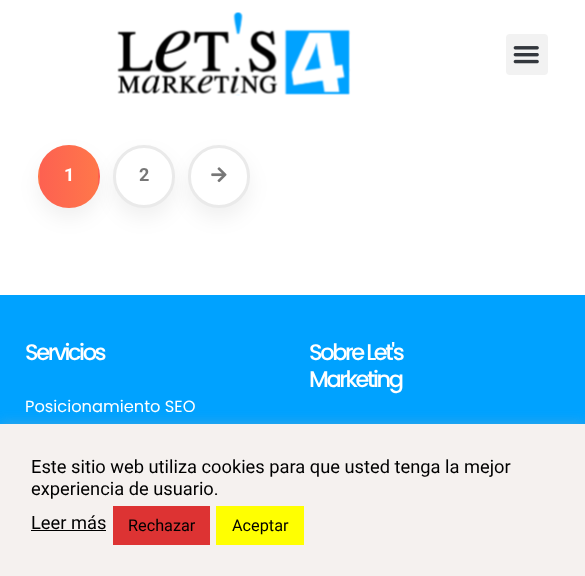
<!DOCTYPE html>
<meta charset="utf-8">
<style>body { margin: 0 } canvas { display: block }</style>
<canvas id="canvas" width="585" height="576"></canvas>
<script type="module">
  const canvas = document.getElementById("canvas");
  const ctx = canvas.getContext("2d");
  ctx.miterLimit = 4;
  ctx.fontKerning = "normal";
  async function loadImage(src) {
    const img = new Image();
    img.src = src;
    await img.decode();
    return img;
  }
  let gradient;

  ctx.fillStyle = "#ffffff";
  ctx.fillRect(0, 0, 585, 576);
  ctx.drawImage(await loadImage("img1.png"), 117, 12, 234, 84);
  ctx.fillStyle = "#f2f2f2";
  ctx.beginPath();
  ctx.roundRect(506, 34, 42, 41, 4);
  ctx.fill();
  ctx.drawImage(await loadImage("img2.png"), 513, 46, 26, 18);
  ctx.fillStyle = "rgba(0, 0, 0, 0.06)";
  ctx.filter = "blur(10px)";
  ctx.beginPath();
  ctx.roundRect(38, 155, 62, 63, 31);
  ctx.fill();
  ctx.filter = "none";
  ctx.save();
  ctx.beginPath();
  ctx.roundRect(38, 145, 62, 63, 31);
  ctx.clip();
  gradient = ctx.createLinearGradient(-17, 176, 40, 176);
  gradient.addColorStop(0, "#fd6151");
  gradient.addColorStop(1, "#ff774a");
  ctx.fillStyle = gradient;
  ctx.fillRect(38, 165, 2, 23);
  gradient = ctx.createLinearGradient(40, 176, 98, 176);
  gradient.addColorStop(0, "#fd6151");
  gradient.addColorStop(1, "#ff774a");
  ctx.fillStyle = gradient;
  ctx.fillRect(40, 145, 58, 63);
  gradient = ctx.createLinearGradient(98, 176, 155, 176);
  gradient.addColorStop(0, "#fd6151");
  gradient.addColorStop(1, "#ff774a");
  ctx.fillStyle = gradient;
  ctx.fillRect(98, 165, 2, 23);
  ctx.restore();
  ctx.font = "bold 18px Roboto";
  ctx.fillStyle = "#ffffff";
  ctx.fillText("1", 64, 181);
  ctx.fillStyle = "rgba(0, 0, 0, 0.06)";
  ctx.filter = "blur(10px)";
  ctx.beginPath();
  ctx.roundRect(113, 155, 62, 63, 31);
  ctx.fill();
  ctx.filter = "none";
  ctx.fillStyle = "#ffffff";
  ctx.beginPath();
  ctx.roundRect(114.5, 146.5, 59, 60, 29.5);
  ctx.fill();
  ctx.strokeStyle = "#eaeaea";
  ctx.lineWidth = 3;
  ctx.stroke();
  ctx.fillStyle = "#777777";
  ctx.fillText("2", 139, 181);
  ctx.fillStyle = "rgba(0, 0, 0, 0.06)";
  ctx.filter = "blur(10px)";
  ctx.beginPath();
  ctx.roundRect(188, 155, 62, 63, 31);
  ctx.fill();
  ctx.filter = "none";
  ctx.fillStyle = "#ffffff";
  ctx.beginPath();
  ctx.roundRect(189.5, 146.5, 59, 60, 29.5);
  ctx.fill();
  ctx.stroke();
  ctx.drawImage(await loadImage("img3.png"), 211, 167, 16, 16);
  ctx.fillStyle = "#00a2ff";
  ctx.fillRect(0, 295, 585, 129);
  ctx.letterSpacing = "-2.4px";
  ctx.font = "500 22.5px Poppins";
  ctx.fillStyle = "#ffffff";
  ctx.fillText("Servicios", 25, 360);
  ctx.letterSpacing = "0px";
  ctx.font = "16.25px Poppins";
  ctx.fillText("Posicionamiento SEO", 25, 412);
  ctx.letterSpacing = "-2.4px";
  ctx.font = "500 22.5px Poppins";
  ctx.fillText("Sobre Let's", 309, 360);
  ctx.fillText("Marketing", 309, 387);
  ctx.fillStyle = "rgba(172, 171, 171, 0.3)";
  ctx.filter = "blur(6px)";
  ctx.beginPath();
  ctx.rect(0, 423, 585, 152);
  ctx.fill();
  ctx.filter = "none";
  ctx.fillStyle = "#f5f1ef";
  ctx.fillRect(0, 424, 585, 152);
  ctx.letterSpacing = "0px";
  ctx.font = "18.3px Roboto";
  ctx.fillStyle = "#000000";
  ctx.fillText("Este sitio web utiliza cookies para que usted tenga la mejor", 31, 473);
  ctx.fillText("experiencia de usuario.", 31, 495);
  ctx.fillText("Leer más", 31, 529);
  ctx.fillRect(31, 530, 75, 1);
  ctx.fillStyle = "#dd3333";
  ctx.fillRect(113, 506, 97, 39);
  ctx.font = "16.25px Roboto";
  ctx.fillStyle = "#000000";
  ctx.fillText("Rechazar", 128, 531);
  ctx.fillStyle = "#ffff01";
  ctx.fillRect(216, 506, 88, 39);
  ctx.fillStyle = "#000000";
  ctx.fillText("Aceptar", 232, 531);
</script>
